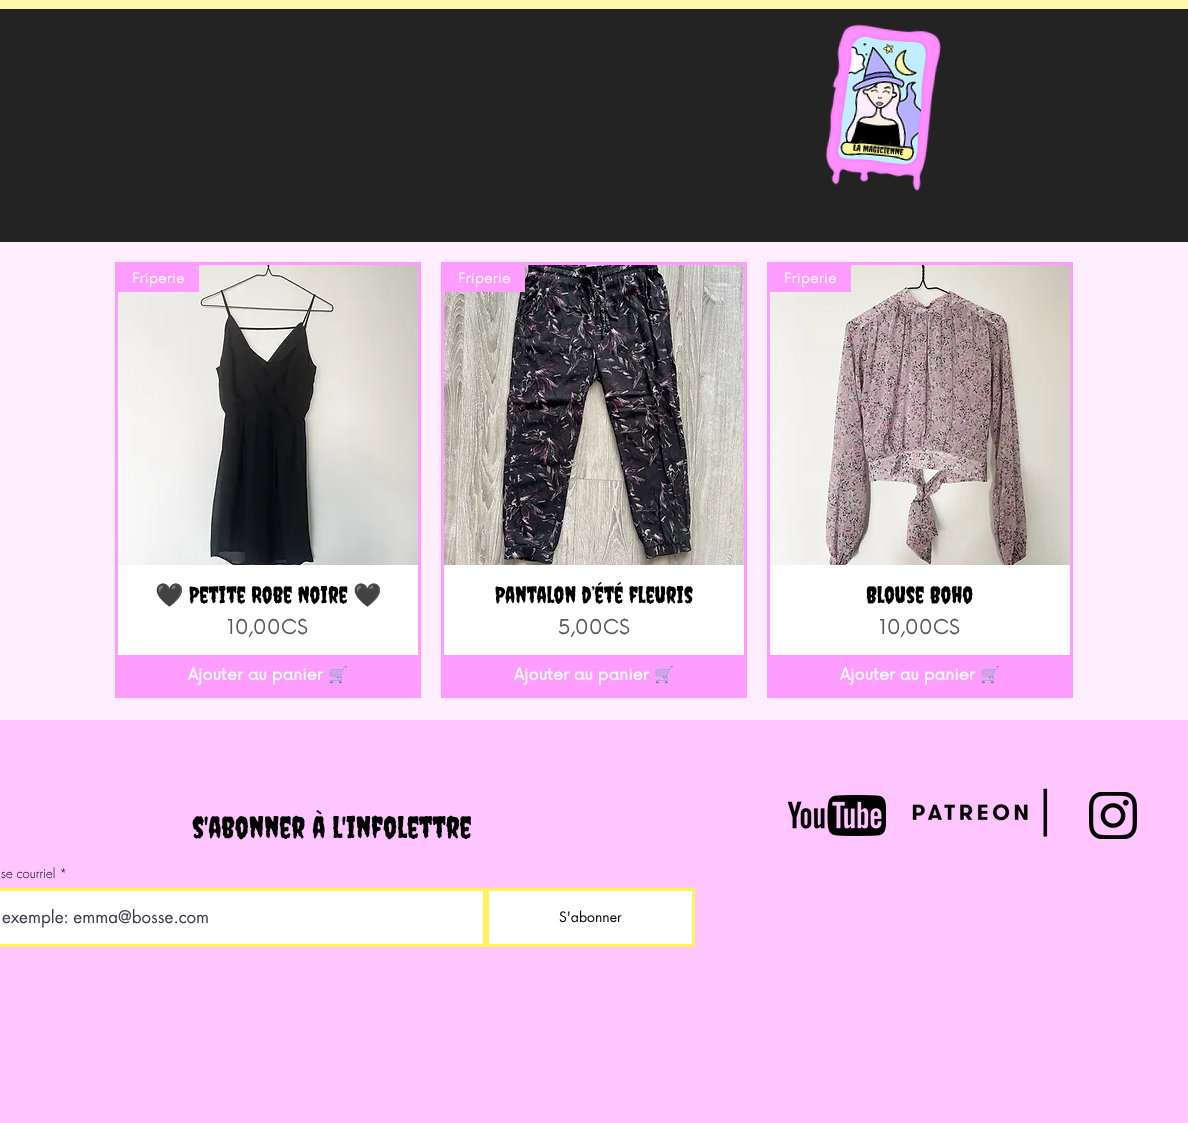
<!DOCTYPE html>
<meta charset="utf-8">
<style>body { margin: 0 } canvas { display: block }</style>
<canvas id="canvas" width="1188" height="1123"></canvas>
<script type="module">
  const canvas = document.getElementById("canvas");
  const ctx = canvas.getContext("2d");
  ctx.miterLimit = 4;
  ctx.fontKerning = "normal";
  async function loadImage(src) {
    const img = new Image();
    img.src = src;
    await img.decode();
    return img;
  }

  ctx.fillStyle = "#ffeeff";
  ctx.fillRect(0, 0, 1188, 1123);
  ctx.fillStyle = "#fff9a7";
  ctx.fillRect(0, 0, 1188, 9);
  ctx.fillStyle = "#242323";
  ctx.fillRect(0, 9, 1188, 233);
  ctx.drawImage(await loadImage("img1.png"), 825, 24, 116, 167);
  ctx.fillStyle = "#ffffff";
  ctx.fillRect(118, 565, 300, 90);
  ctx.strokeStyle = "#fe9dff";
  ctx.lineWidth = 3;
  ctx.strokeRect(116.5, 263.5, 303, 433);
  ctx.drawImage(await loadImage("img2.png"), 118, 265, 300, 300);
  ctx.fillStyle = "#fe9dff";
  ctx.fillRect(118, 265, 81, 27);
  ctx.font = "14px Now";
  ctx.fillStyle = "#ffffff";
  ctx.fillText("Friperie", 132, 283);
  ctx.font = "23px Noto Color Emoji";
  ctx.fillStyle = "#000000";
  ctx.fillText("🖤", 155, 603);
  ctx.font = "23px Creepster";
  ctx.fillText("Petite Robe Noire", 189, 603);
  ctx.font = "23px Noto Color Emoji";
  ctx.fillText("🖤", 353, 603);
  ctx.font = "20px Now";
  ctx.fillStyle = "#595959";
  ctx.fillText("10,00C$", 227, 634);
  ctx.fillStyle = "#fe9dff";
  ctx.fillRect(118, 655, 300, 40);
  ctx.font = "bold 16px Now";
  ctx.fillStyle = "#ffffff";
  ctx.fillText("Ajouter au panier", 188, 680);
  ctx.font = "bold 16px Noto Color Emoji";
  ctx.fillText("🛒", 328, 680);
  ctx.fillRect(444, 565, 300, 90);
  ctx.strokeRect(442.5, 263.5, 303, 433);
  ctx.drawImage(await loadImage("img3.png"), 444, 265, 300, 300);
  ctx.fillStyle = "#fe9dff";
  ctx.fillRect(444, 265, 81, 27);
  ctx.font = "14px Now";
  ctx.fillStyle = "#ffffff";
  ctx.fillText("Friperie", 458, 283);
  ctx.font = "23px Creepster";
  ctx.fillStyle = "#000000";
  ctx.fillText("Pantalon d’été fleuris", 495, 603);
  ctx.font = "20px Now";
  ctx.fillStyle = "#595959";
  ctx.fillText("5,00C$", 558, 634);
  ctx.fillStyle = "#fe9dff";
  ctx.fillRect(444, 655, 300, 40);
  ctx.font = "bold 16px Now";
  ctx.fillStyle = "#ffffff";
  ctx.fillText("Ajouter au panier", 514, 680);
  ctx.font = "bold 16px Noto Color Emoji";
  ctx.fillText("🛒", 654, 680);
  ctx.fillRect(770, 565, 300, 90);
  ctx.strokeRect(768.5, 263.5, 303, 433);
  ctx.drawImage(await loadImage("img4.png"), 770, 265, 300, 300);
  ctx.fillStyle = "#fe9dff";
  ctx.fillRect(770, 265, 81, 27);
  ctx.font = "14px Now";
  ctx.fillStyle = "#ffffff";
  ctx.fillText("Friperie", 784, 283);
  ctx.font = "23px Creepster";
  ctx.fillStyle = "#000000";
  ctx.fillText("Blouse Boho", 866, 603);
  ctx.font = "20px Now";
  ctx.fillStyle = "#595959";
  ctx.fillText("10,00C$", 879, 634);
  ctx.fillStyle = "#fe9dff";
  ctx.fillRect(770, 655, 300, 40);
  ctx.font = "bold 16px Now";
  ctx.fillStyle = "#ffffff";
  ctx.fillText("Ajouter au panier", 840, 680);
  ctx.font = "bold 16px Noto Color Emoji";
  ctx.fillText("🛒", 980, 680);
  ctx.fillStyle = "#fec5ff";
  ctx.fillRect(0, 720, 1188, 403);
  ctx.font = "30px Creepster";
  ctx.fillStyle = "#000000";
  ctx.fillText("s'abonner à l'infolettre", 192, 838);
  ctx.font = "300 13px futura";
  ctx.fillText("se courriel *", 1, 878);
  ctx.fillStyle = "#ffffff";
  ctx.beginPath();
  ctx.rect(-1.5, 889.5, 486, 56);
  ctx.fill();
  ctx.strokeStyle = "#fff35a";
  ctx.stroke();
  ctx.font = "17px futura";
  ctx.fillStyle = "#373b4d";
  ctx.fillText("exemple: emma@bosse.com", 2, 923);
  ctx.fillStyle = "#ffffff";
  ctx.beginPath();
  ctx.rect(487.5, 889.5, 206, 56);
  ctx.fill();
  ctx.stroke();
  ctx.font = "14px futura";
  ctx.fillStyle = "#000000";
  ctx.fillText("S'abonner", 559, 922);
  ctx.drawImage(await loadImage("img5.png"), 788, 795, 98, 41);
  ctx.drawImage(await loadImage("img6.png"), 912, 788, 136, 49);
  ctx.drawImage(await loadImage("img7.png"), 1089, 792, 48, 47);
</script>
